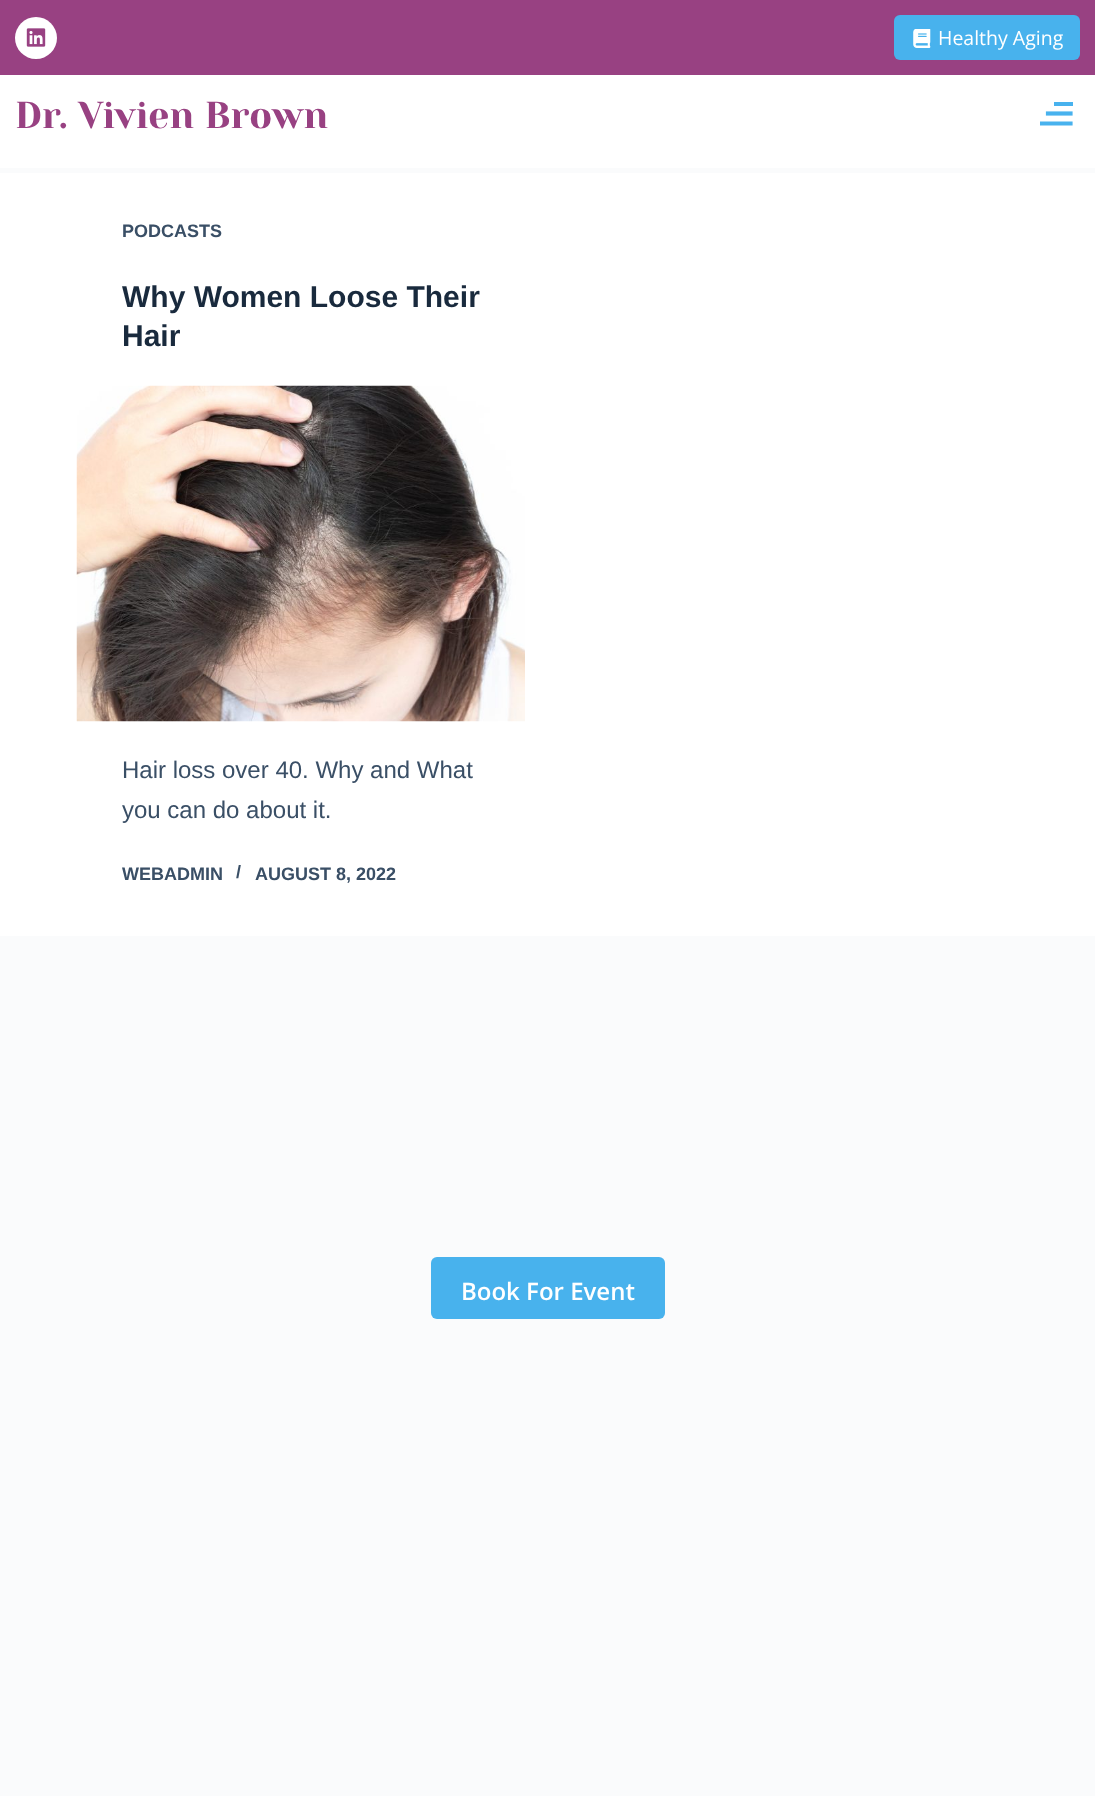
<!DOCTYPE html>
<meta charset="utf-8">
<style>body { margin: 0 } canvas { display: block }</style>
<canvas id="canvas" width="1095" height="1796"></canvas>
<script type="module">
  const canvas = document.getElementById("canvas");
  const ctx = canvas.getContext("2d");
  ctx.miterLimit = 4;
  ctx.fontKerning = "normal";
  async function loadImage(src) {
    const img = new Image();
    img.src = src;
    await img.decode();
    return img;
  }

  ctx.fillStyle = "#fafbfc";
  ctx.fillRect(0, 0, 1095, 1796);
  ctx.fillStyle = "#984182";
  ctx.fillRect(0, 0, 1095, 75);
  ctx.fillStyle = "#ffffff";
  ctx.beginPath();
  ctx.arc(36, 38, 21, 0, Math.PI * 2);
  ctx.fill();
  ctx.drawImage(await loadImage("img1.png"), 26, 28, 20, 19);
  ctx.fillStyle = "#48b2ed";
  ctx.beginPath();
  ctx.roundRect(894, 15, 186, 45, 6);
  ctx.fill();
  ctx.drawImage(await loadImage("img2.png"), 913, 29, 18, 19);
  ctx.font = "19.5px Open Sans";
  ctx.fillStyle = "#ffffff";
  ctx.fillText("Healthy Aging", 938, 45);
  ctx.fillRect(0, 75, 1095, 93);
  ctx.font = "37.5px Yeseva One";
  ctx.fillStyle = "#984182";
  ctx.fillText("Dr. Vivien Brown", 15, 128);
  ctx.fillStyle = "#48b2ee";
  ctx.fillRect(1054, 102, 19, 4);
  ctx.beginPath();
  ctx.moveTo(1048, 113.5);
  ctx.lineTo(1070.5, 113.5);
  ctx.strokeStyle = "#48b2ee";
  ctx.lineWidth = 4.2;
  ctx.lineCap = "square";
  ctx.lineJoin = "round";
  ctx.stroke();
  ctx.save();
  ctx.beginPath();
  ctx.rect(1040, 102, 33, 24);
  ctx.clip();
  ctx.beginPath();
  ctx.moveTo(1041.5, 123.5);
  ctx.lineTo(1070.5, 123.5);
  ctx.stroke();
  ctx.restore();
  ctx.fillStyle = "#ffffff";
  ctx.fillRect(0, 173, 1095, 763);
  ctx.font = "bold 18px Liberation Sans";
  ctx.fillStyle = "#3a4f66";
  ctx.fillText("PODCASTS", 122, 237);
  ctx.font = "bold 30px Liberation Sans";
  ctx.fillStyle = "#192a3d";
  ctx.fillText("Why Women Loose Their", 122, 307);
  ctx.fillText("Hair", 122, 346);
  ctx.drawImage(await loadImage("img3.png"), 76, 385, 449, 337);
  ctx.font = "24px Liberation Sans";
  ctx.fillStyle = "#3a4f66";
  ctx.fillText("Hair loss over 40. Why and What", 122, 778);
  ctx.fillText("you can do about it.", 122, 818);
  ctx.font = "bold 18px Liberation Sans";
  ctx.fillText("WEBADMIN", 122, 880);
  ctx.fillText("/", 236, 878);
  ctx.fillText("AUGUST 8, 2022", 255, 880);
  ctx.fillStyle = "#48b2ed";
  ctx.beginPath();
  ctx.roundRect(431, 1257, 234, 62, 6);
  ctx.fill();
  ctx.font = "600 24px Open Sans";
  ctx.fillStyle = "#ffffff";
  ctx.fillText("Book For Event", 461, 1300);
</script>
